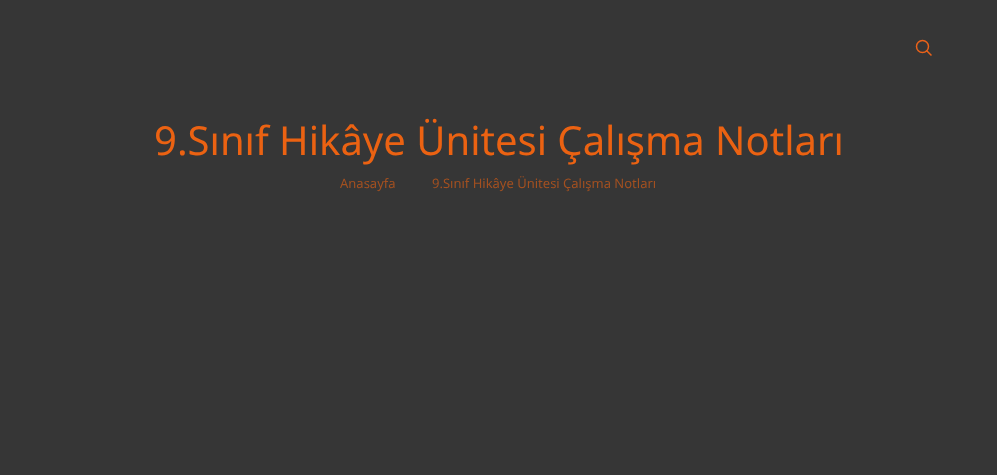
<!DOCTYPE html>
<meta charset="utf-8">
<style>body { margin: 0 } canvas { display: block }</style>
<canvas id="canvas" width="997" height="475"></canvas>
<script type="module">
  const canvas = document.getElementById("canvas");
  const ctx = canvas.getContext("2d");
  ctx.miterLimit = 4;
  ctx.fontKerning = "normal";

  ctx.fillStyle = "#363636";
  ctx.fillRect(0, 0, 997, 475);
  ctx.beginPath();
  ctx.arc(922.5, 46.5, 6, 0, Math.PI * 2);
  ctx.strokeStyle = "#eb6219";
  ctx.lineWidth = 1.5;
  ctx.stroke();
  ctx.beginPath();
  ctx.moveTo(926.5, 50.5);
  ctx.lineTo(931.5, 55.5);
  ctx.stroke();
  ctx.font = "40px Noto Sans";
  ctx.fillStyle = "#eb6212";
  ctx.fillText("9.Sınıf Hikâye Ünitesi Çalışma Notları", 154, 155);
  ctx.font = "13px Noto Sans";
  ctx.fillStyle = "#a35020";
  ctx.fillText("Anasayfa", 340, 188);
  ctx.fillText("9.Sınıf Hikâye Ünitesi Çalışma Notları", 432, 188);
</script>
